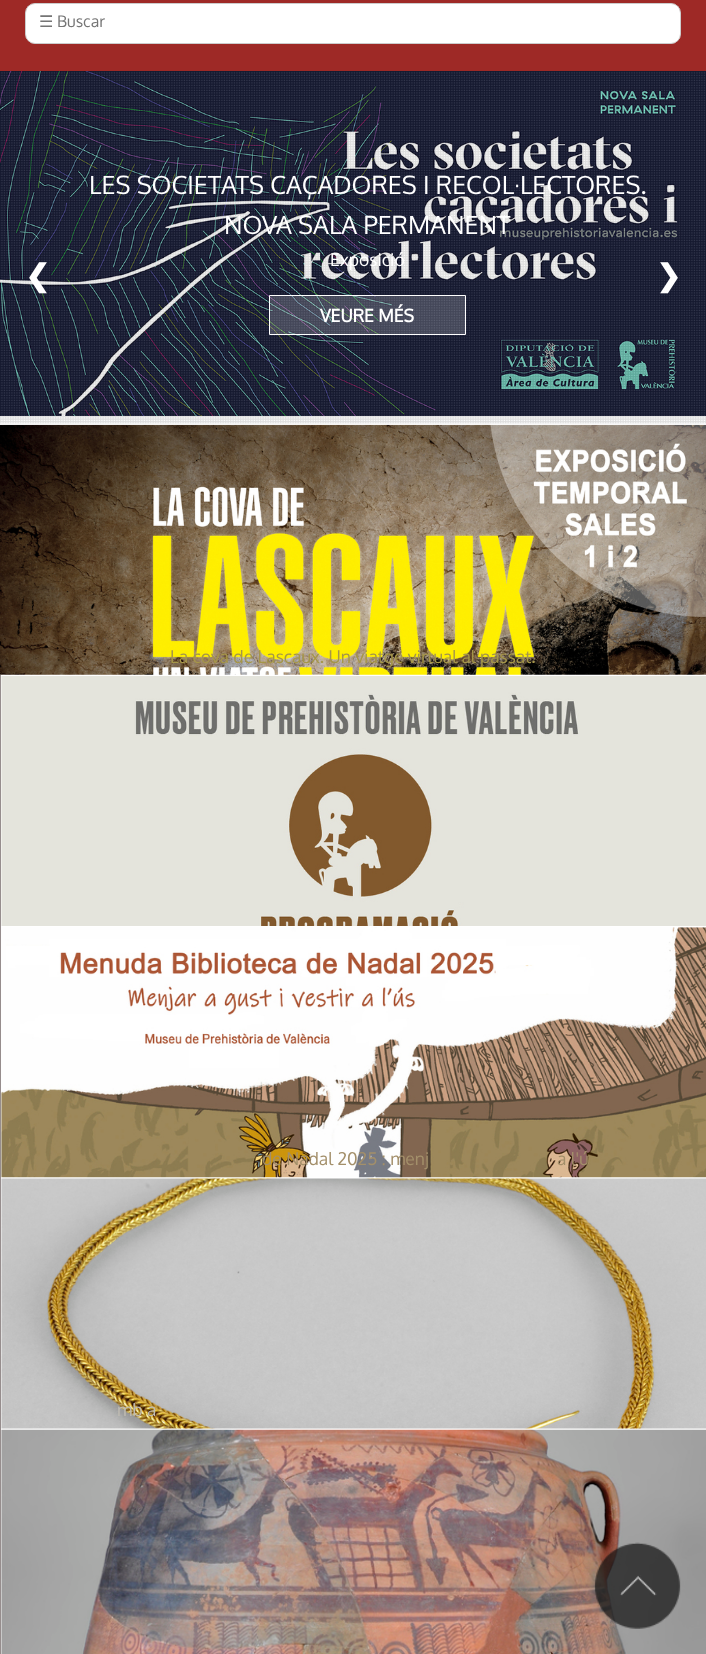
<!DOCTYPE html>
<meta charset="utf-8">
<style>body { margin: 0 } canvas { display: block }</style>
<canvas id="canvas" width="706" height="1654"></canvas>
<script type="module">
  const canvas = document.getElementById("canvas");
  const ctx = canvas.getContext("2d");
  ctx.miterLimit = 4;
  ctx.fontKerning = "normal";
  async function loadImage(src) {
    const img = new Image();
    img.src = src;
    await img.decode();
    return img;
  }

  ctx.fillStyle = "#ffffff";
  ctx.fillRect(0, 0, 706, 1654);
  ctx.fillStyle = "#9e2926";
  ctx.fillRect(0, 0, 706, 71);
  ctx.fillStyle = "#ffffff";
  ctx.beginPath();
  ctx.roundRect(25.5, 3.5, 655, 40, 9.5);
  ctx.fill();
  ctx.strokeStyle = "#cccccc";
  ctx.stroke();
  ctx.font = "16px DejaVu Sans";
  ctx.fillStyle = "#757575";
  ctx.fillText("☰", 39, 27);
  ctx.font = "16px Oxygen";
  ctx.fillText("Buscar", 57, 27);
  ctx.drawImage(await loadImage("img1.png"), 0, 71, 706, 345);
  ctx.drawImage(await loadImage("img2.png"), 0, 71, 706, 353);
  ctx.font = "bold 30px DejaVu Sans";
  ctx.fillStyle = "#ffffff";
  ctx.fillText("❮", 25, 286);
  ctx.font = "25px Oxygen";
  ctx.fillText("LES SOCIETATS CAÇADORES I RECOL·LECTORES.", 89, 194);
  ctx.fillText("NOVA SALA PERMANENT", 224, 234);
  ctx.font = "17.5px Oxygen";
  ctx.fillText("Exposició", 330, 266);
  ctx.fillStyle = "rgba(255, 255, 255, 0.2)";
  ctx.beginPath();
  ctx.rect(269.5, 295.5, 196, 39);
  ctx.fill();
  ctx.strokeStyle = "#ffffff";
  ctx.stroke();
  ctx.font = "bold 17.5px Oxygen";
  ctx.fillStyle = "#ffffff";
  ctx.fillText("VEURE MÉS", 320, 322);
  ctx.font = "bold 30px DejaVu Sans";
  ctx.fillText("❯", 656, 286);
  ctx.drawImage(await loadImage("img3.png"), 0, 424, 706, 251);
  ctx.font = "17.5px Oxygen";
  ctx.fillStyle = "#a59649";
  ctx.fillText("La cova de Lascaux. Un viatge virtual al passat.", 170, 663);
  ctx.fillStyle = "#968d8d";
  ctx.fillRect(0, 675, 1, 979);
  ctx.drawImage(await loadImage("img4.png"), 1, 676, 705, 250);
  ctx.drawImage(await loadImage("img5.png"), 1, 927, 705, 251);
  ctx.fillStyle = "#a38f6a";
  ctx.fillText("de Nadal 2025 : menj", 262, 1165);
  ctx.fillText("a l'ú", 557, 1165);
  ctx.drawImage(await loadImage("img6.png"), 1, 1178, 705, 251);
  ctx.fillStyle = "#bfbbb2";
  ctx.fillText("mb a", 117, 1416);
  ctx.drawImage(await loadImage("img7.png"), 1, 1429, 705, 225);
  ctx.drawImage(await loadImage("img8.png"), 594, 1542, 87, 87);
</script>
